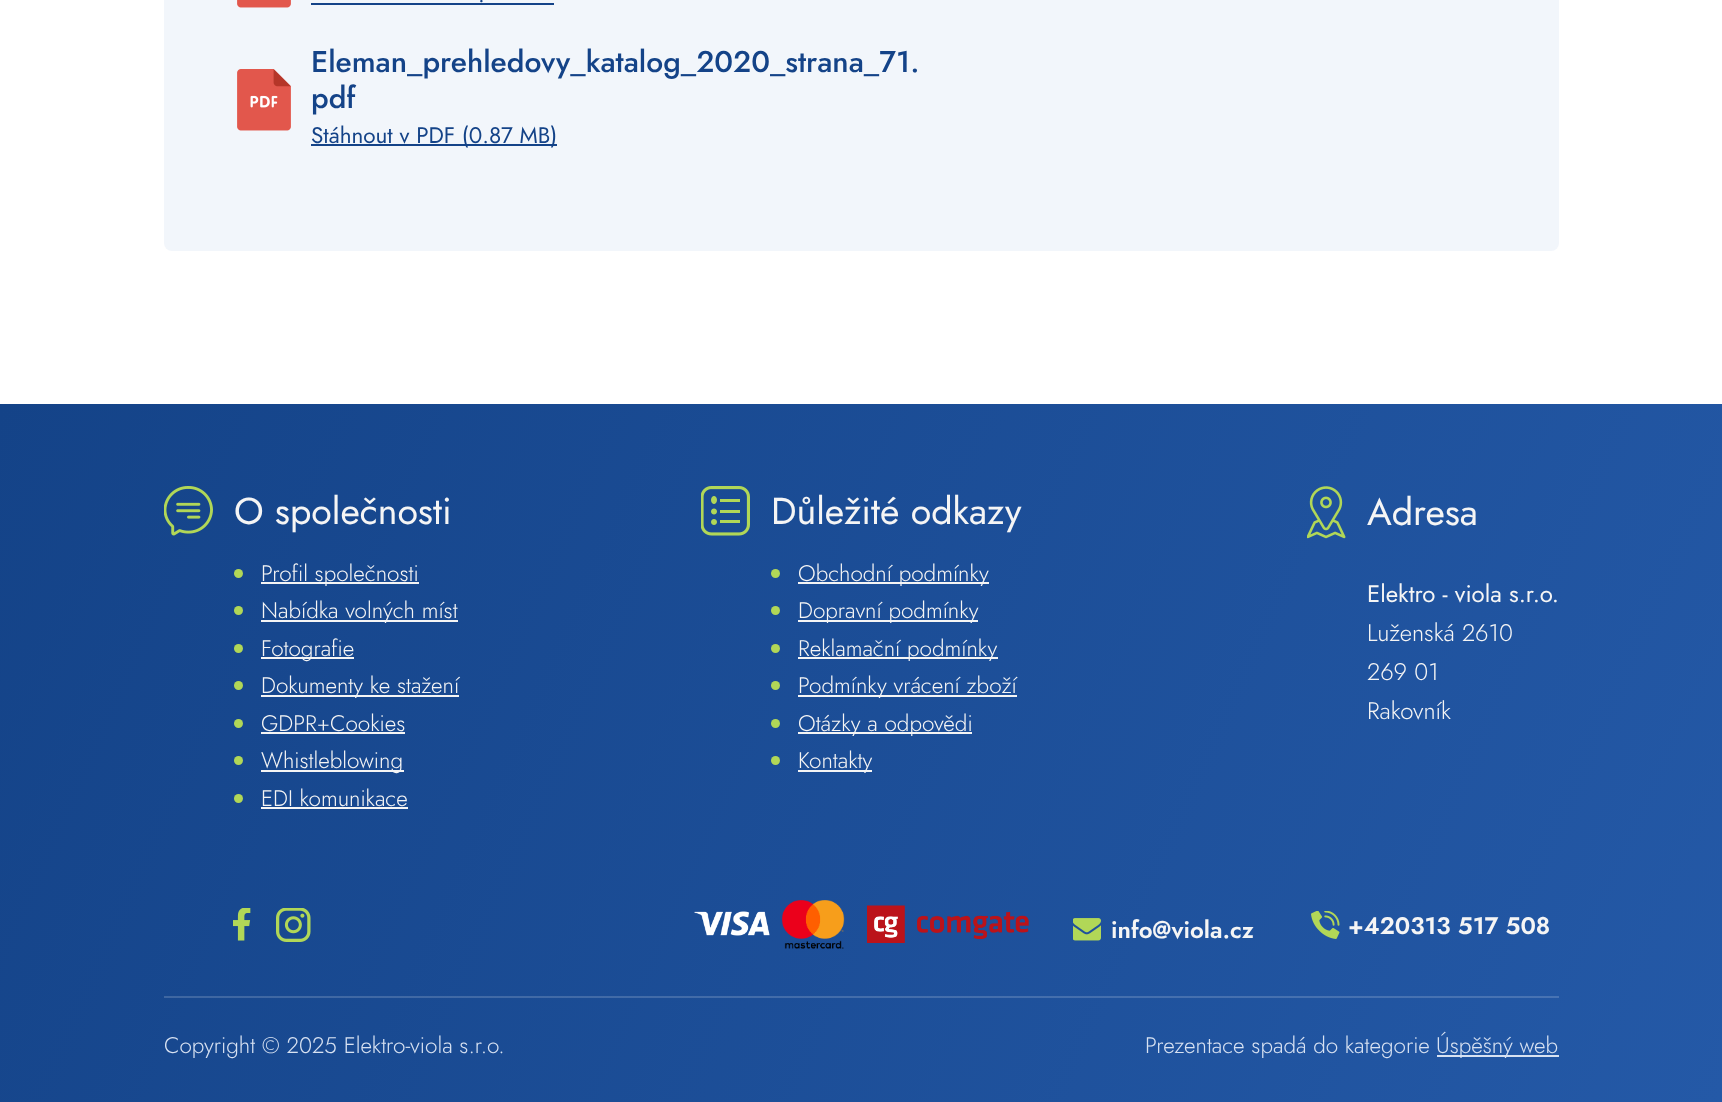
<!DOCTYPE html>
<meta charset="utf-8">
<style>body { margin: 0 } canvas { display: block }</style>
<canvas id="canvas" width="1722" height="1102"></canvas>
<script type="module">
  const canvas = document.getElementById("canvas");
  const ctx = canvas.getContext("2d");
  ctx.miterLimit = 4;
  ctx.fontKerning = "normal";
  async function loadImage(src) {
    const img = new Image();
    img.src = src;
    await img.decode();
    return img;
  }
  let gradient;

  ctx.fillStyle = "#ffffff";
  ctx.fillRect(0, 0, 1722, 1102);
  ctx.fillStyle = "#f2f6fb";
  ctx.beginPath();
  ctx.roundRect(164, -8, 1395, 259, 8);
  ctx.fill();
  ctx.drawImage(await loadImage("img1.png"), 237, 0, 54, 8);
  ctx.font = "22.5px Jost";
  ctx.fillStyle = "#144388";
  ctx.fillText(".", 478, 2);
  ctx.fillRect(311, 3, 243, 2);
  ctx.drawImage(await loadImage("img2.png"), 237, 69, 54, 62);
  ctx.font = "500 30px Jost";
  ctx.fillText("Eleman_prehledovy_katalog_2020_strana_71.", 311, 72);
  ctx.fillText("pdf", 311, 108);
  ctx.fillRect(311, 144, 246, 2);
  ctx.font = "22.5px Jost";
  ctx.fillText("Stáhnout v PDF (0.87 MB)", 311, 143);
  gradient = ctx.createLinearGradient(13, 375, 1709, 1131);
  gradient.addColorStop(0, "#144388");
  gradient.addColorStop(1, "#2459a7");
  ctx.fillStyle = gradient;
  ctx.fillRect(0, 404, 1722, 698);
  gradient = ctx.createLinearGradient(13, 375, 1709, 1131);
  gradient.addColorStop(0, "#3c639c");
  gradient.addColorStop(1, "#4975b6");
  ctx.fillStyle = gradient;
  ctx.fillRect(164, 996, 1395, 2);
  ctx.drawImage(await loadImage("img3.png"), 164, 486, 49, 50);
  ctx.font = "37.5px Jost";
  ctx.fillStyle = "#f5f5f5";
  ctx.fillText("O společnosti", 234, 524);
  ctx.fillStyle = "#b1d757";
  ctx.beginPath();
  ctx.arc(238.5, 573.5, 4.5, 0, Math.PI * 2);
  ctx.fill();
  ctx.fillStyle = "#f5f5f5";
  ctx.fillRect(261, 582, 158, 2);
  ctx.font = "300 22.5px Jost";
  ctx.fillText("Profil společnosti", 261, 581);
  ctx.fillStyle = "#b1d757";
  ctx.beginPath();
  ctx.arc(238.5, 610.5, 4.5, 0, Math.PI * 2);
  ctx.fill();
  ctx.fillStyle = "#f5f5f5";
  ctx.fillRect(261, 620, 197, 2);
  ctx.fillText("Nabídka volných míst", 261, 618);
  ctx.fillStyle = "#b1d757";
  ctx.beginPath();
  ctx.arc(238.5, 648.5, 4.5, 0, Math.PI * 2);
  ctx.fill();
  ctx.fillStyle = "#f5f5f5";
  ctx.fillRect(261, 657, 93, 2);
  ctx.fillText("Fotografie", 261, 656);
  ctx.fillStyle = "#b1d757";
  ctx.beginPath();
  ctx.arc(238.5, 685.5, 4.5, 0, Math.PI * 2);
  ctx.fill();
  ctx.fillStyle = "#f5f5f5";
  ctx.fillRect(261, 695, 198, 2);
  ctx.fillText("Dokumenty ke stažení", 261, 693);
  ctx.fillStyle = "#b1d757";
  ctx.beginPath();
  ctx.arc(238.5, 723.5, 4.5, 0, Math.PI * 2);
  ctx.fill();
  ctx.fillStyle = "#f5f5f5";
  ctx.fillText("GDPR+Cookies", 261, 731);
  ctx.fillRect(261, 732, 144, 2);
  ctx.fillStyle = "#b1d757";
  ctx.beginPath();
  ctx.arc(238.5, 760.5, 4.5, 0, Math.PI * 2);
  ctx.fill();
  ctx.fillStyle = "#f5f5f5";
  ctx.fillRect(261, 770, 143, 2);
  ctx.fillText("Whistleblowing", 261, 768);
  ctx.fillStyle = "#b1d757";
  ctx.beginPath();
  ctx.arc(238.5, 798.5, 4.5, 0, Math.PI * 2);
  ctx.fill();
  ctx.fillStyle = "#f5f5f5";
  ctx.fillText("EDI komunikace", 261, 806);
  ctx.fillRect(261, 807, 147, 2);
  ctx.drawImage(await loadImage("img4.png"), 701, 486, 49, 50);
  ctx.font = "37.5px Jost";
  ctx.fillText("Důležité odkazy", 771, 524);
  ctx.fillStyle = "#b1d757";
  ctx.beginPath();
  ctx.arc(775.5, 573.5, 4.5, 0, Math.PI * 2);
  ctx.fill();
  ctx.fillStyle = "#f5f5f5";
  ctx.fillRect(798, 582, 191, 2);
  ctx.font = "300 22.5px Jost";
  ctx.fillText("Obchodní podmínky", 798, 581);
  ctx.fillStyle = "#b1d757";
  ctx.beginPath();
  ctx.arc(775.5, 610.5, 4.5, 0, Math.PI * 2);
  ctx.fill();
  ctx.fillStyle = "#f5f5f5";
  ctx.fillRect(798, 620, 180, 2);
  ctx.fillText("Dopravní podmínky", 798, 618);
  ctx.fillStyle = "#b1d757";
  ctx.beginPath();
  ctx.arc(775.5, 648.5, 4.5, 0, Math.PI * 2);
  ctx.fill();
  ctx.fillStyle = "#f5f5f5";
  ctx.fillRect(798, 657, 200, 2);
  ctx.fillText("Reklamační podmínky", 798, 656);
  ctx.fillStyle = "#b1d757";
  ctx.beginPath();
  ctx.arc(775.5, 685.5, 4.5, 0, Math.PI * 2);
  ctx.fill();
  ctx.fillStyle = "#f5f5f5";
  ctx.fillRect(798, 695, 219, 2);
  ctx.fillText("Podmínky vrácení zboží", 798, 693);
  ctx.fillStyle = "#b1d757";
  ctx.beginPath();
  ctx.arc(775.5, 723.5, 4.5, 0, Math.PI * 2);
  ctx.fill();
  ctx.fillStyle = "#f5f5f5";
  ctx.fillRect(798, 732, 174, 2);
  ctx.fillText("Otázky a odpovědi", 798, 731);
  ctx.fillStyle = "#b1d757";
  ctx.beginPath();
  ctx.arc(775.5, 760.5, 4.5, 0, Math.PI * 2);
  ctx.fill();
  ctx.fillStyle = "#f5f5f5";
  ctx.fillRect(798, 770, 74, 2);
  ctx.fillText("Kontakty", 798, 768);
  ctx.drawImage(await loadImage("img5.png"), 1307, 486, 39, 53);
  ctx.font = "37.5px Jost";
  ctx.fillText("Adresa", 1367, 525);
  ctx.font = "24px Jost";
  ctx.fillText("Elektro - viola s.r.o.", 1367, 602);
  ctx.font = "300 24px Jost";
  ctx.fillText("Luženská 2610", 1367, 641);
  ctx.fillText("269 01", 1367, 680);
  ctx.fillText("Rakovník", 1367, 719);
  ctx.drawImage(await loadImage("img6.png"), 233, 908, 18, 33);
  ctx.drawImage(await loadImage("img7.png"), 276, 908, 35, 34);
  ctx.drawImage(await loadImage("img8.png"), 694, 911, 76, 25);
  ctx.drawImage(await loadImage("img9.png"), 781, 900, 64, 49);
  ctx.drawImage(await loadImage("img10.png"), 867, 905, 162, 38);
  ctx.drawImage(await loadImage("img11.png"), 1073, 918, 28, 23);
  ctx.font = "600 24px Jost";
  ctx.fillText("info@viola.cz", 1111, 938);
  ctx.drawImage(await loadImage("img12.png"), 1311, 911, 29, 28);
  ctx.fillText("+420313 517 508", 1348, 934);
  ctx.font = "300 22.5px Jost";
  ctx.fillStyle = "#d8e2f2";
  ctx.fillText("Copyright © 2025 Elektro-viola s.r.o.", 164, 1053);
  ctx.fillText("Prezentace spadá do kategorie", 1145, 1053);
  ctx.fillRect(1437, 1055, 122, 2);
  ctx.fillText("Úspěšný web", 1436, 1053);
</script>
